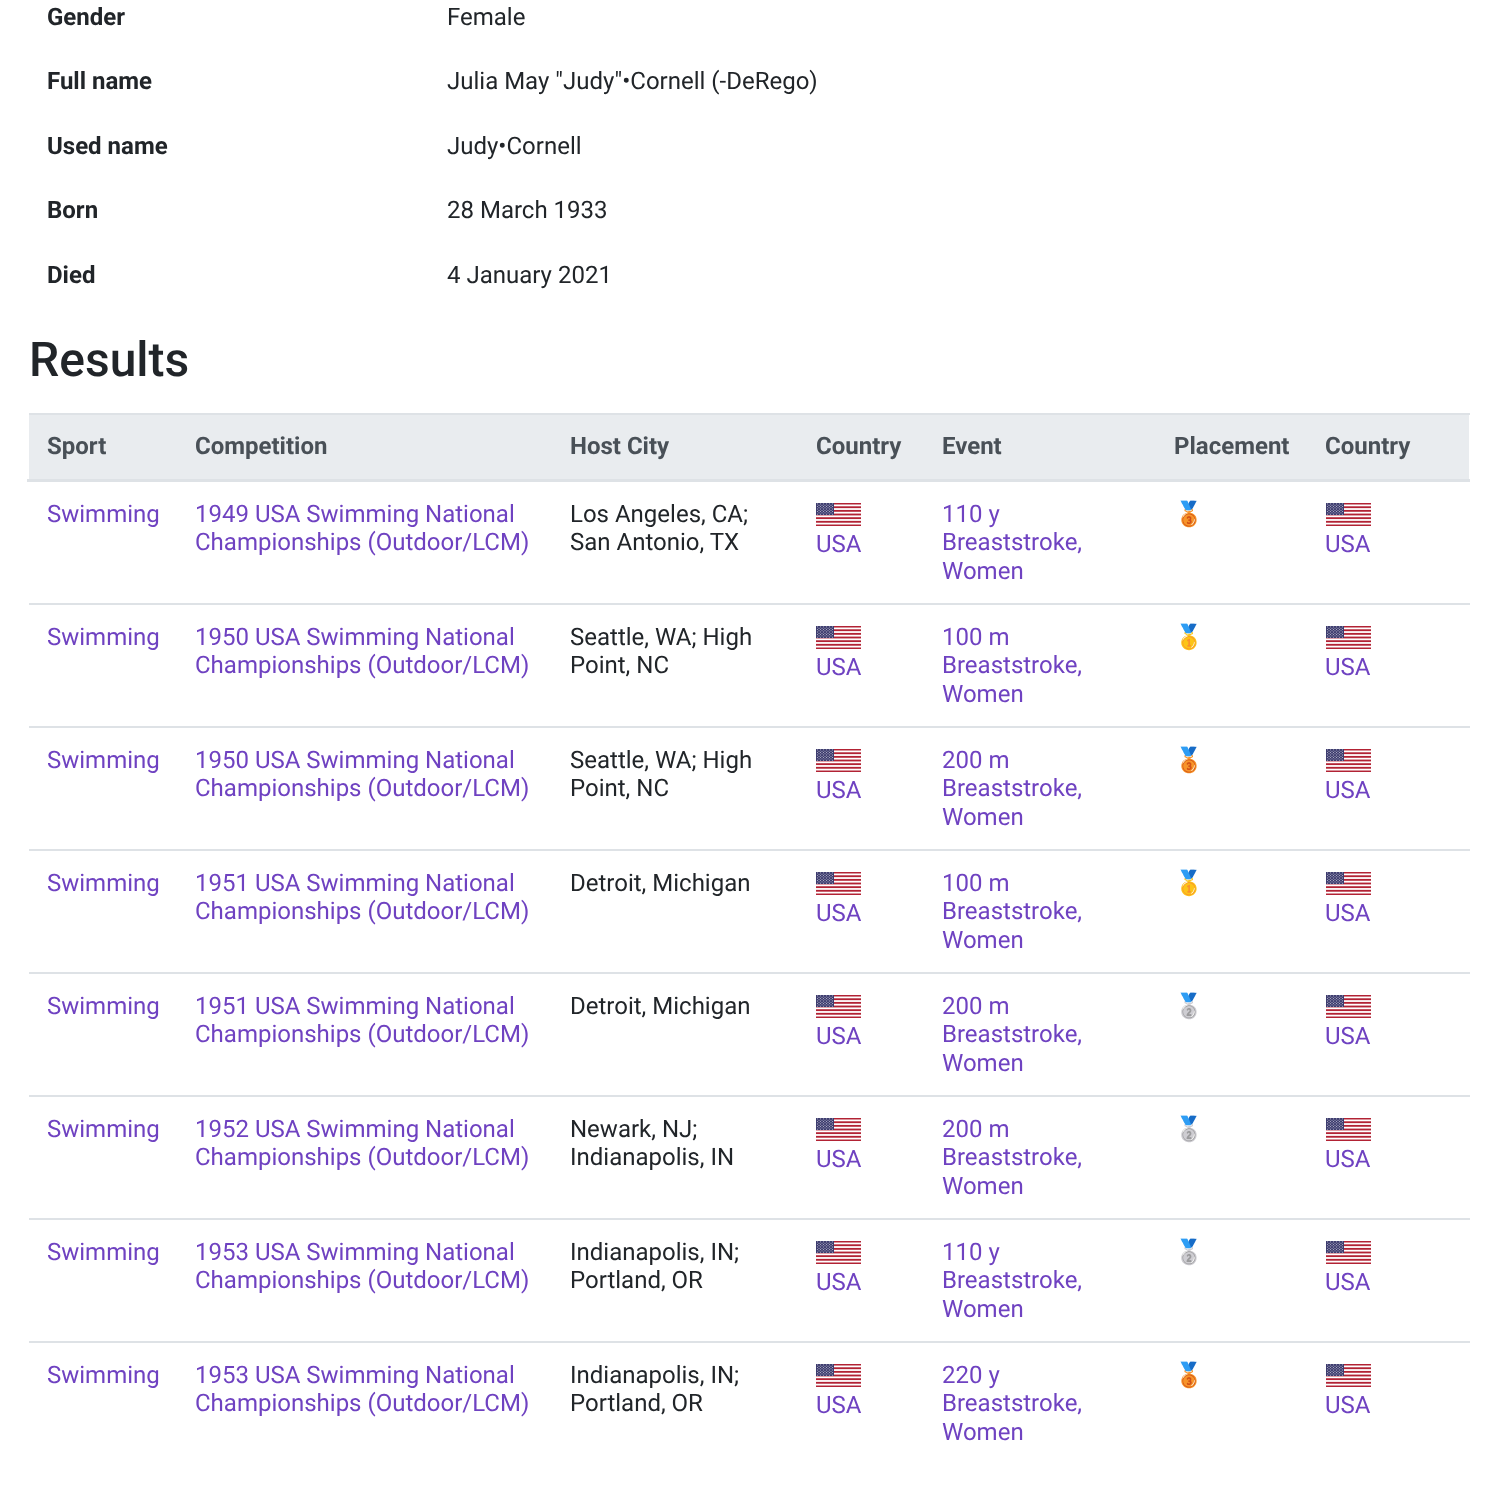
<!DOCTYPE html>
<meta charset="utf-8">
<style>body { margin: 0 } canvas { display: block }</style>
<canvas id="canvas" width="1496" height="1496"></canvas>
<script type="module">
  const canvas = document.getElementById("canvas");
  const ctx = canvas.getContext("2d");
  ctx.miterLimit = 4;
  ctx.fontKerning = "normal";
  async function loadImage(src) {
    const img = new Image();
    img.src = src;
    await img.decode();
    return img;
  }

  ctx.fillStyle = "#ffffff";
  ctx.fillRect(0, 0, 1496, 1496);
  ctx.font = "bold 24px Roboto";
  ctx.fillStyle = "#212529";
  ctx.fillText("Gender", 47, 25);
  ctx.font = "24px Roboto";
  ctx.fillText("Female", 447, 25);
  ctx.font = "bold 24px Roboto";
  ctx.fillText("Full name", 47, 89);
  ctx.font = "24px Roboto";
  ctx.fillText("Julia May \"Judy\"•Cornell (-DeRego)", 447, 89);
  ctx.font = "bold 24px Roboto";
  ctx.fillText("Used name", 47, 154);
  ctx.font = "24px Roboto";
  ctx.fillText("Judy•Cornell", 447, 154);
  ctx.font = "bold 24px Roboto";
  ctx.fillText("Born", 47, 218);
  ctx.font = "24px Roboto";
  ctx.fillText("28 March 1933", 447, 218);
  ctx.font = "bold 24px Roboto";
  ctx.fillText("Died", 47, 283);
  ctx.font = "24px Roboto";
  ctx.fillText("4 January 2021", 447, 283);
  ctx.font = "500 48px Roboto";
  ctx.fillText("Results", 29, 376);
  ctx.fillStyle = "#dee2e6";
  ctx.fillRect(29, 413, 1441, 2);
  ctx.fillRect(27, 479, 1443, 3);
  ctx.fillStyle = "#e9ecef";
  ctx.fillRect(29, 415, 1440, 64);
  ctx.font = "bold 24px Roboto";
  ctx.fillStyle = "#495057";
  ctx.fillText("Sport", 47, 454);
  ctx.fillText("Competition", 195, 454);
  ctx.fillText("Host City", 570, 454);
  ctx.fillText("Country", 816, 454);
  ctx.fillText("Event", 942, 454);
  ctx.fillText("Placement", 1174, 454);
  ctx.fillText("Country", 1325, 454);
  ctx.font = "24px Roboto";
  ctx.fillStyle = "#6f42c1";
  ctx.fillText("Swimming", 47, 522);
  ctx.fillText("1949 USA Swimming National", 195, 522);
  ctx.fillText("Championships (Outdoor/LCM)", 195, 550);
  ctx.fillStyle = "#212529";
  ctx.fillText("Los Angeles, CA;", 570, 522);
  ctx.fillText("San Antonio, TX", 570, 550);
  ctx.drawImage(await loadImage("img1.png"), 816, 503, 45, 23);
  ctx.fillStyle = "#6f42c1";
  ctx.fillText("USA", 816, 552);
  ctx.fillText("110 y", 942, 522);
  ctx.fillText("Breaststroke,", 942, 550);
  ctx.fillText("Women", 942, 579);
  ctx.font = "24px Noto Color Emoji";
  ctx.fillStyle = "#212529";
  ctx.fillText("🥉", 1174, 522);
  ctx.drawImage(await loadImage("img1.png"), 1326, 503, 45, 23);
  ctx.font = "24px Roboto";
  ctx.fillStyle = "#6f42c1";
  ctx.fillText("USA", 1325, 552);
  ctx.fillStyle = "#dee2e6";
  ctx.fillRect(29, 603, 1441, 2);
  ctx.fillStyle = "#6f42c1";
  ctx.fillText("Swimming", 47, 645);
  ctx.fillText("1950 USA Swimming National", 195, 645);
  ctx.fillText("Championships (Outdoor/LCM)", 195, 673);
  ctx.fillStyle = "#212529";
  ctx.fillText("Seattle, WA; High", 570, 645);
  ctx.fillText("Point, NC", 570, 673);
  ctx.drawImage(await loadImage("img1.png"), 816, 626, 45, 23);
  ctx.fillStyle = "#6f42c1";
  ctx.fillText("USA", 816, 675);
  ctx.fillText("100 m", 942, 645);
  ctx.fillText("Breaststroke,", 942, 673);
  ctx.fillText("Women", 942, 702);
  ctx.font = "24px Noto Color Emoji";
  ctx.fillStyle = "#212529";
  ctx.fillText("🥇", 1174, 645);
  ctx.drawImage(await loadImage("img1.png"), 1326, 626, 45, 23);
  ctx.font = "24px Roboto";
  ctx.fillStyle = "#6f42c1";
  ctx.fillText("USA", 1325, 675);
  ctx.fillStyle = "#dee2e6";
  ctx.fillRect(29, 726, 1441, 2);
  ctx.fillStyle = "#6f42c1";
  ctx.fillText("Swimming", 47, 768);
  ctx.fillText("1950 USA Swimming National", 195, 768);
  ctx.fillText("Championships (Outdoor/LCM)", 195, 796);
  ctx.fillStyle = "#212529";
  ctx.fillText("Seattle, WA; High", 570, 768);
  ctx.fillText("Point, NC", 570, 796);
  ctx.drawImage(await loadImage("img1.png"), 816, 749, 45, 23);
  ctx.fillStyle = "#6f42c1";
  ctx.fillText("USA", 816, 798);
  ctx.fillText("200 m", 942, 768);
  ctx.fillText("Breaststroke,", 942, 796);
  ctx.fillText("Women", 942, 825);
  ctx.font = "24px Noto Color Emoji";
  ctx.fillStyle = "#212529";
  ctx.fillText("🥉", 1174, 768);
  ctx.drawImage(await loadImage("img1.png"), 1326, 749, 45, 23);
  ctx.font = "24px Roboto";
  ctx.fillStyle = "#6f42c1";
  ctx.fillText("USA", 1325, 798);
  ctx.fillStyle = "#dee2e6";
  ctx.fillRect(29, 849, 1441, 2);
  ctx.fillStyle = "#6f42c1";
  ctx.fillText("Swimming", 47, 891);
  ctx.fillText("1951 USA Swimming National", 195, 891);
  ctx.fillText("Championships (Outdoor/LCM)", 195, 919);
  ctx.fillStyle = "#212529";
  ctx.fillText("Detroit, Michigan", 570, 891);
  ctx.drawImage(await loadImage("img1.png"), 816, 872, 45, 23);
  ctx.fillStyle = "#6f42c1";
  ctx.fillText("USA", 816, 921);
  ctx.fillText("100 m", 942, 891);
  ctx.fillText("Breaststroke,", 942, 919);
  ctx.fillText("Women", 942, 948);
  ctx.font = "24px Noto Color Emoji";
  ctx.fillStyle = "#212529";
  ctx.fillText("🥇", 1174, 891);
  ctx.drawImage(await loadImage("img1.png"), 1326, 872, 45, 23);
  ctx.font = "24px Roboto";
  ctx.fillStyle = "#6f42c1";
  ctx.fillText("USA", 1325, 921);
  ctx.fillStyle = "#dee2e6";
  ctx.fillRect(29, 972, 1441, 2);
  ctx.fillStyle = "#6f42c1";
  ctx.fillText("Swimming", 47, 1014);
  ctx.fillText("1951 USA Swimming National", 195, 1014);
  ctx.fillText("Championships (Outdoor/LCM)", 195, 1042);
  ctx.fillStyle = "#212529";
  ctx.fillText("Detroit, Michigan", 570, 1014);
  ctx.drawImage(await loadImage("img1.png"), 816, 995, 45, 23);
  ctx.fillStyle = "#6f42c1";
  ctx.fillText("USA", 816, 1044);
  ctx.fillText("200 m", 942, 1014);
  ctx.fillText("Breaststroke,", 942, 1042);
  ctx.fillText("Women", 942, 1071);
  ctx.font = "24px Noto Color Emoji";
  ctx.fillStyle = "#212529";
  ctx.fillText("🥈", 1174, 1014);
  ctx.drawImage(await loadImage("img1.png"), 1326, 995, 45, 23);
  ctx.font = "24px Roboto";
  ctx.fillStyle = "#6f42c1";
  ctx.fillText("USA", 1325, 1044);
  ctx.fillStyle = "#dee2e6";
  ctx.fillRect(29, 1095, 1441, 2);
  ctx.fillStyle = "#6f42c1";
  ctx.fillText("Swimming", 47, 1137);
  ctx.fillText("1952 USA Swimming National", 195, 1137);
  ctx.fillText("Championships (Outdoor/LCM)", 195, 1165);
  ctx.fillStyle = "#212529";
  ctx.fillText("Newark, NJ;", 570, 1137);
  ctx.fillText("Indianapolis, IN", 570, 1165);
  ctx.drawImage(await loadImage("img1.png"), 816, 1118, 45, 23);
  ctx.fillStyle = "#6f42c1";
  ctx.fillText("USA", 816, 1167);
  ctx.fillText("200 m", 942, 1137);
  ctx.fillText("Breaststroke,", 942, 1165);
  ctx.fillText("Women", 942, 1194);
  ctx.font = "24px Noto Color Emoji";
  ctx.fillStyle = "#212529";
  ctx.fillText("🥈", 1174, 1137);
  ctx.drawImage(await loadImage("img1.png"), 1326, 1118, 45, 23);
  ctx.font = "24px Roboto";
  ctx.fillStyle = "#6f42c1";
  ctx.fillText("USA", 1325, 1167);
  ctx.fillStyle = "#dee2e6";
  ctx.fillRect(29, 1218, 1441, 2);
  ctx.fillStyle = "#6f42c1";
  ctx.fillText("Swimming", 47, 1260);
  ctx.fillText("1953 USA Swimming National", 195, 1260);
  ctx.fillText("Championships (Outdoor/LCM)", 195, 1288);
  ctx.fillStyle = "#212529";
  ctx.fillText("Indianapolis, IN;", 570, 1260);
  ctx.fillText("Portland, OR", 570, 1288);
  ctx.drawImage(await loadImage("img1.png"), 816, 1241, 45, 23);
  ctx.fillStyle = "#6f42c1";
  ctx.fillText("USA", 816, 1290);
  ctx.fillText("110 y", 942, 1260);
  ctx.fillText("Breaststroke,", 942, 1288);
  ctx.fillText("Women", 942, 1317);
  ctx.font = "24px Noto Color Emoji";
  ctx.fillStyle = "#212529";
  ctx.fillText("🥈", 1174, 1260);
  ctx.drawImage(await loadImage("img1.png"), 1326, 1241, 45, 23);
  ctx.font = "24px Roboto";
  ctx.fillStyle = "#6f42c1";
  ctx.fillText("USA", 1325, 1290);
  ctx.fillStyle = "#dee2e6";
  ctx.fillRect(29, 1341, 1441, 2);
  ctx.fillStyle = "#6f42c1";
  ctx.fillText("Swimming", 47, 1383);
  ctx.fillText("1953 USA Swimming National", 195, 1383);
  ctx.fillText("Championships (Outdoor/LCM)", 195, 1411);
  ctx.fillStyle = "#212529";
  ctx.fillText("Indianapolis, IN;", 570, 1383);
  ctx.fillText("Portland, OR", 570, 1411);
  ctx.drawImage(await loadImage("img1.png"), 816, 1364, 45, 23);
  ctx.fillStyle = "#6f42c1";
  ctx.fillText("USA", 816, 1413);
  ctx.fillText("220 y", 942, 1383);
  ctx.fillText("Breaststroke,", 942, 1411);
  ctx.fillText("Women", 942, 1440);
  ctx.font = "24px Noto Color Emoji";
  ctx.fillStyle = "#212529";
  ctx.fillText("🥉", 1174, 1383);
  ctx.drawImage(await loadImage("img1.png"), 1326, 1364, 45, 23);
  ctx.font = "24px Roboto";
  ctx.fillStyle = "#6f42c1";
  ctx.fillText("USA", 1325, 1413);
</script>
